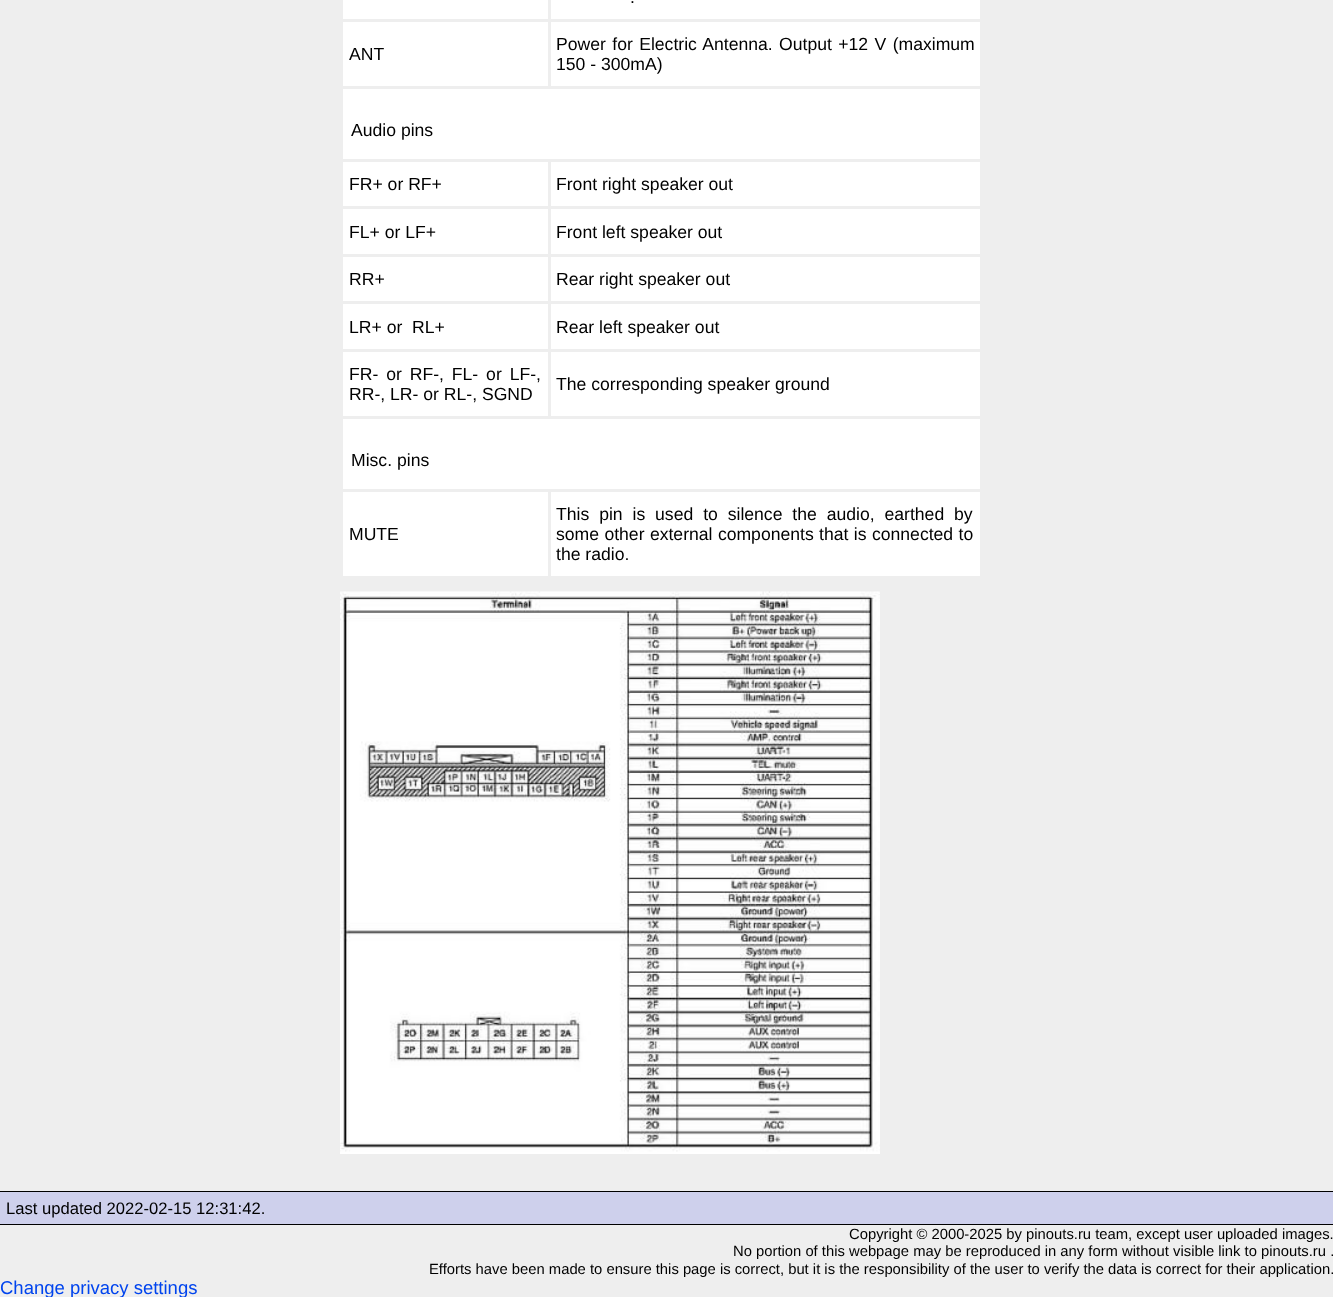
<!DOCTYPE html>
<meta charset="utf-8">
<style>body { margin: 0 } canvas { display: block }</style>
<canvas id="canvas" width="1333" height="1297"></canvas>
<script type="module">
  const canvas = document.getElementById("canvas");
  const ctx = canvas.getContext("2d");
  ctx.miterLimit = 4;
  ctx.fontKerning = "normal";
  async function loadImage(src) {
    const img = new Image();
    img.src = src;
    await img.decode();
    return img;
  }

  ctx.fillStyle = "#eeeeee";
  ctx.fillRect(0, 0, 1333, 1297);
  ctx.fillStyle = "#ffffff";
  ctx.fillRect(343, 0, 637, 576);
  ctx.fillStyle = "#eeeeee";
  ctx.fillRect(548, 19, 435, 3);
  ctx.fillRect(340, 86, 643, 3);
  ctx.fillRect(548, 19, 3, 70);
  ctx.fillRect(340, 19, 210, 3);
  ctx.fillRect(548, 0, 3, 21);
  ctx.font = "17.6px Liberation Sans";
  ctx.fillStyle = "#000000";
  ctx.fillText(".", 630, 3);
  ctx.fillText("ANT", 349, 60);
  ctx.wordSpacing = "1.5px";
  ctx.fillText("Power for Electric Antenna. Output +12 V (maximum", 556, 50);
  ctx.wordSpacing = "0px";
  ctx.fillText("150 - 300mA)", 556, 70);
  ctx.fillText("Audio pins", 351, 136);
  ctx.fillStyle = "#eeeeee";
  ctx.fillRect(548, 159, 435, 3);
  ctx.fillRect(548, 206, 435, 3);
  ctx.fillRect(548, 254, 435, 3);
  ctx.fillRect(548, 301, 435, 3);
  ctx.fillRect(548, 349, 435, 3);
  ctx.fillRect(340, 416, 643, 3);
  ctx.fillRect(548, 349, 3, 70);
  ctx.fillRect(340, 349, 210, 3);
  ctx.fillRect(548, 301, 3, 50);
  ctx.fillRect(340, 301, 210, 3);
  ctx.fillRect(548, 254, 3, 50);
  ctx.fillRect(340, 254, 210, 3);
  ctx.fillRect(548, 206, 3, 50);
  ctx.fillRect(340, 206, 210, 3);
  ctx.fillRect(548, 159, 3, 50);
  ctx.fillRect(340, 159, 210, 3);
  ctx.fillStyle = "#000000";
  ctx.fillText("FR+ or RF+", 349, 190);
  ctx.fillText("Front right speaker out", 556, 190);
  ctx.fillText("FL+ or LF+", 349, 238);
  ctx.fillText("Front left speaker out", 556, 238);
  ctx.fillText("RR+", 349, 285);
  ctx.fillText("Rear right speaker out", 556, 285);
  ctx.fillText("LR+ or  RL+", 349, 333);
  ctx.fillText("Rear left speaker out", 556, 333);
  ctx.wordSpacing = "3px";
  ctx.fillText("FR- or RF-, FL- or LF-,", 349, 380);
  ctx.wordSpacing = "0px";
  ctx.fillText("RR-, LR- or RL-, SGND", 349, 400);
  ctx.fillText("The corresponding speaker ground", 556, 390);
  ctx.fillText("Misc. pins", 351, 466);
  ctx.fillStyle = "#eeeeee";
  ctx.fillRect(548, 489, 435, 3);
  ctx.fillRect(548, 489, 3, 90);
  ctx.fillRect(340, 489, 210, 3);
  ctx.fillStyle = "#000000";
  ctx.fillText("MUTE", 349, 540);
  ctx.wordSpacing = "5px";
  ctx.fillText("This pin is used to silence the audio, earthed by", 556, 520);
  ctx.wordSpacing = "0.5px";
  ctx.fillText("some other external components that is connected to", 556, 540);
  ctx.wordSpacing = "0px";
  ctx.fillText("the radio.", 556, 560);
  ctx.drawImage(await loadImage("img1.png"), 340, 591, 540, 563);
  ctx.fillStyle = "#ced0ec";
  ctx.fillRect(0, 1192, 1333, 32);
  ctx.fillStyle = "#000000";
  ctx.fillRect(0, 1191, 1333, 1);
  ctx.fillRect(0, 1224, 1333, 1);
  ctx.font = "16.6px Liberation Sans";
  ctx.fillText("Last updated 2022-02-15 12:31:42.", 6, 1214);
  ctx.font = "14.8px Liberation Sans";
  ctx.fillText("Copyright © 2000-2025 by pinouts.ru team, except user uploaded images.", 849, 1239);
  ctx.fillText("No portion of this webpage may be reproduced in any form without visible link to pinouts.ru .", 733, 1256);
  ctx.fillText("Efforts have been made to ensure this page is correct, but it is the responsibility of the user to verify the data is correct for their application.", 429, 1274);
  ctx.font = "18.5px Liberation Sans";
  ctx.fillStyle = "#0044ee";
  ctx.fillText("Change privacy settings", 0, 1294);
</script>
